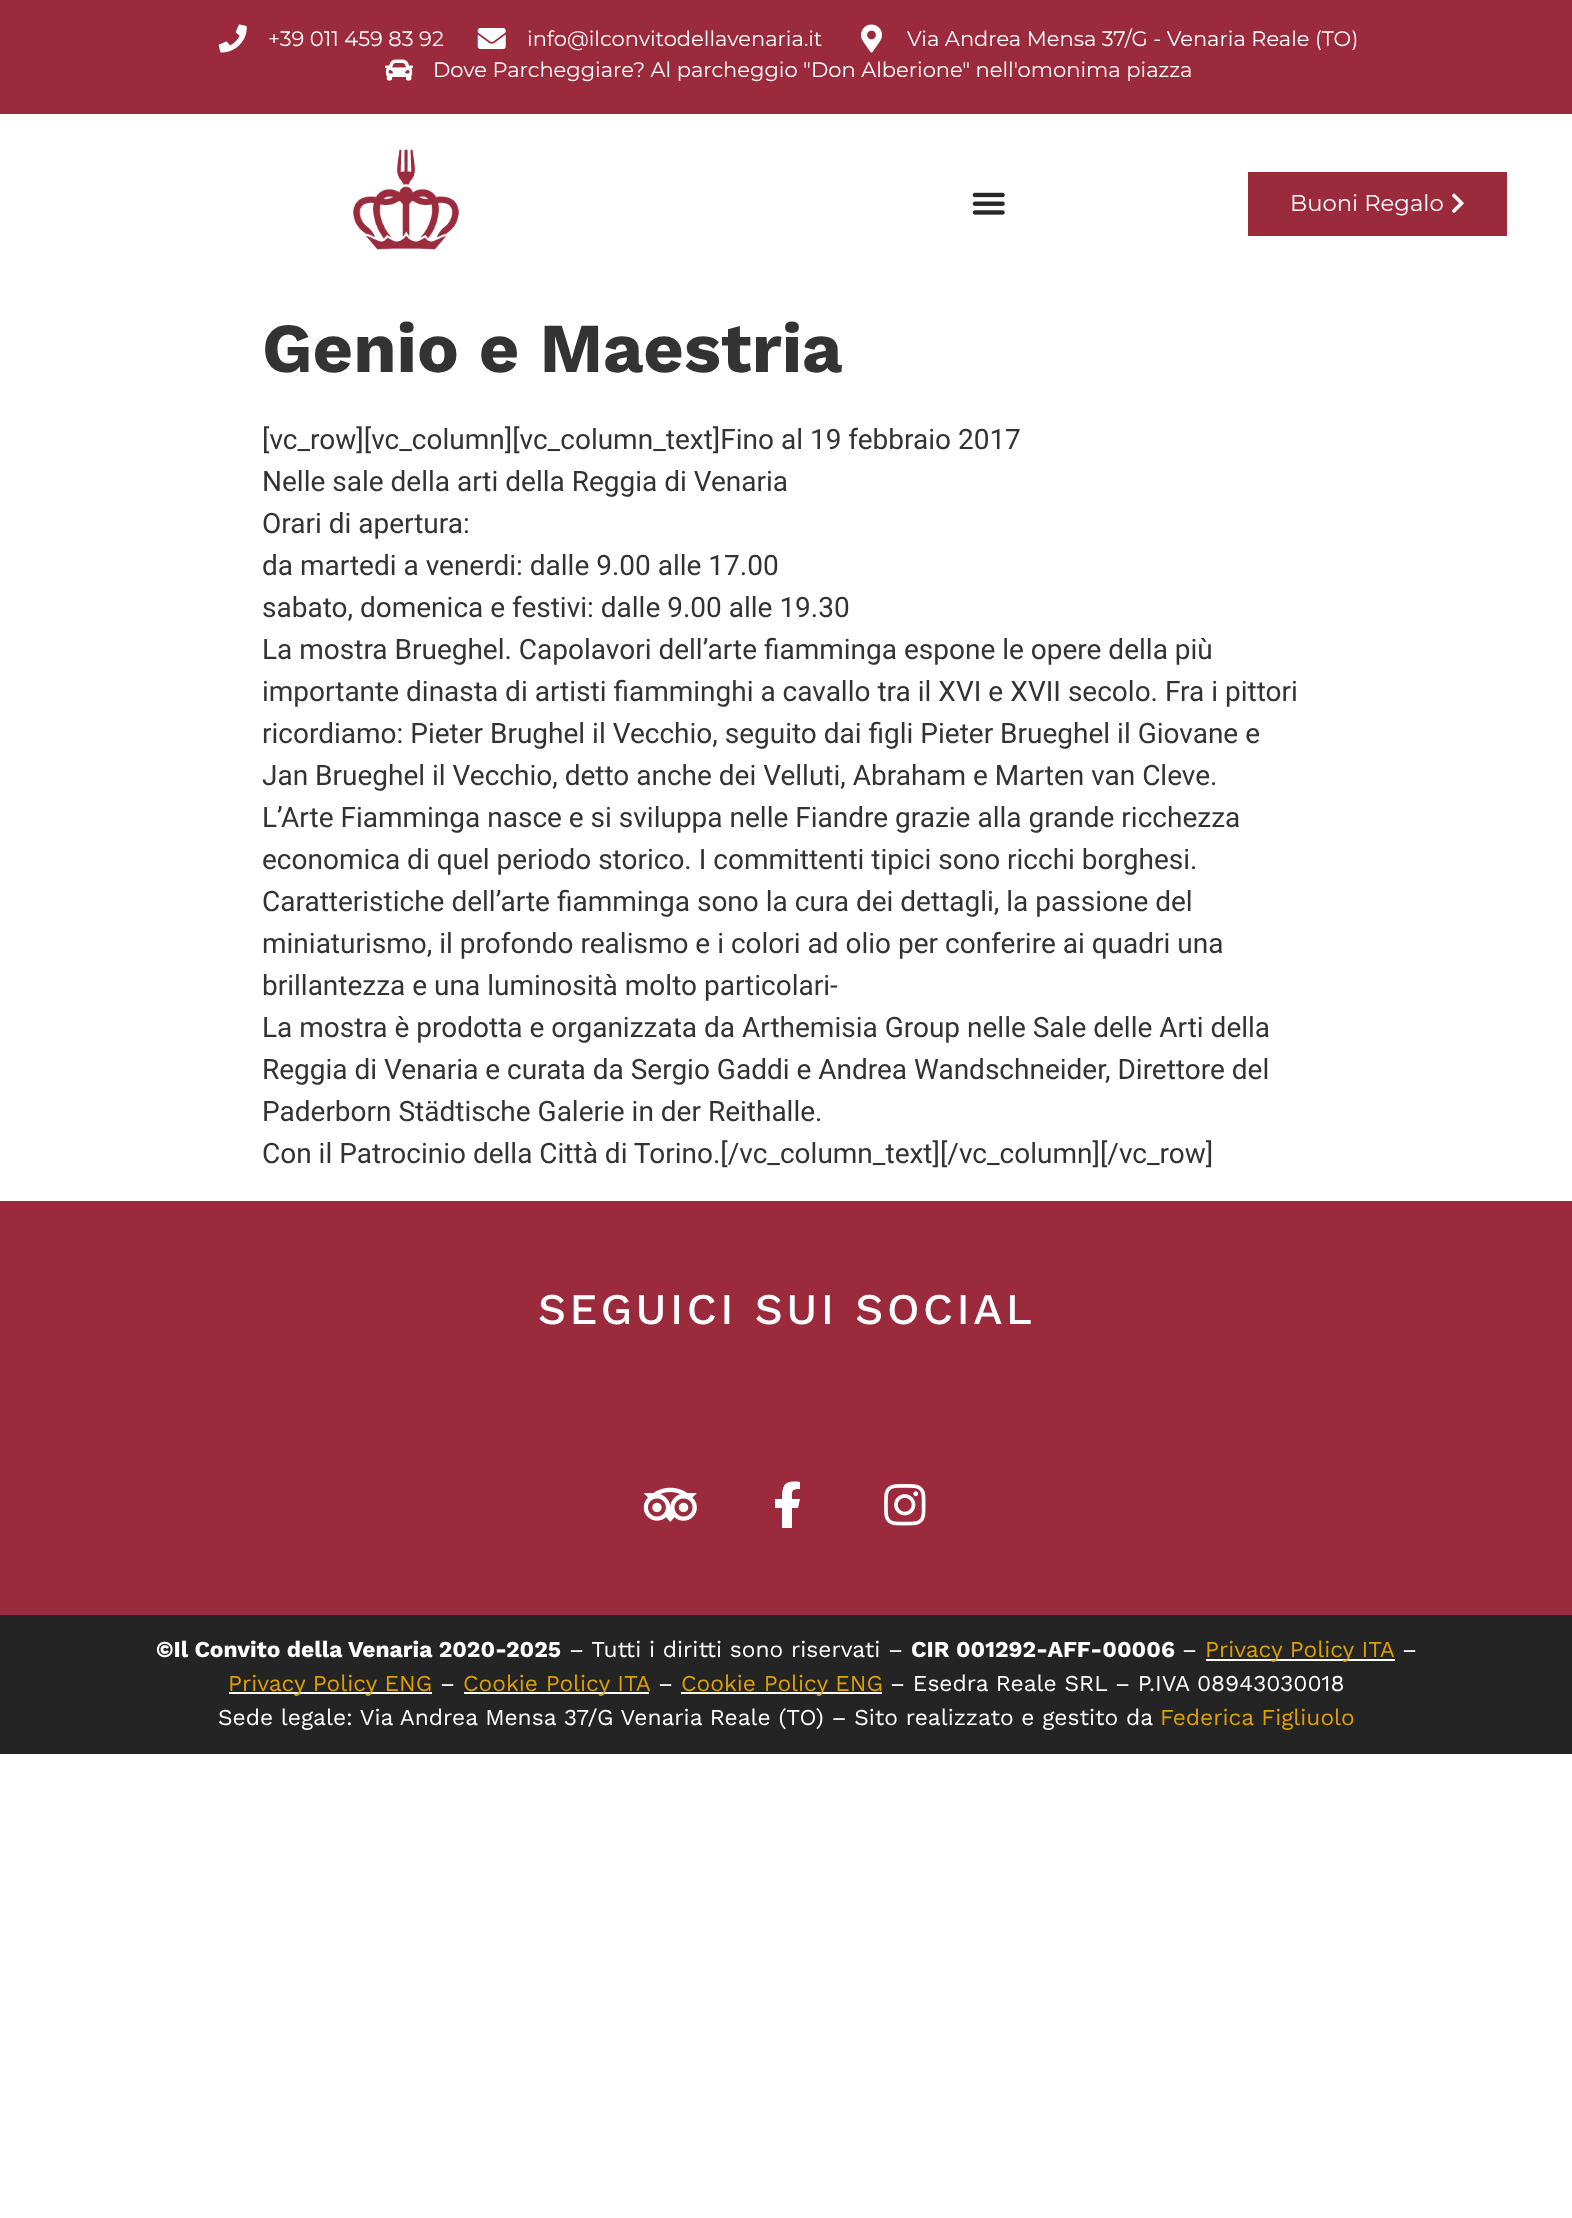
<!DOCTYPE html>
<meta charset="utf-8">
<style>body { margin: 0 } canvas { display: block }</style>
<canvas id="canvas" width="1572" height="2218"></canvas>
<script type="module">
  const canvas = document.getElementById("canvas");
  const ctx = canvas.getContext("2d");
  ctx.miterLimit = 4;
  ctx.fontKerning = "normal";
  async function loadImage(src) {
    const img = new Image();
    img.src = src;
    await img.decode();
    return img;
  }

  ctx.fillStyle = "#ffffff";
  ctx.fillRect(0, 0, 1572, 2218);
  ctx.fillStyle = "#9b2a3c";
  ctx.fillRect(0, 0, 1572, 114);
  ctx.drawImage(await loadImage("img1.png"), 218, 24, 29, 29);
  ctx.font = "21px Montserrat";
  ctx.fillStyle = "#ffffff";
  ctx.fillText("+39 011 459 83 92", 268, 46);
  ctx.drawImage(await loadImage("img2.png"), 477, 28, 29, 21);
  ctx.fillText("info@ilconvitodellavenaria.it", 527, 46);
  ctx.drawImage(await loadImage("img3.png"), 861, 24, 21, 29);
  ctx.fillText("Via Andrea Mensa 37/G - Venaria Reale (TO)", 907, 46);
  ctx.drawImage(await loadImage("img4.png"), 385, 59, 28, 22);
  ctx.fillText("Dove Parcheggiare? Al parcheggio \"Don Alberione\" nell'omonima piazza", 433, 77);
  ctx.drawImage(await loadImage("img5.png"), 353, 149, 106, 101);
  ctx.drawImage(await loadImage("img6.png"), 972, 192, 33, 23);
  ctx.fillStyle = "#9b2a3c";
  ctx.fillRect(1248, 172, 259, 64);
  ctx.font = "22.75px Montserrat";
  ctx.fillStyle = "#ffffff";
  ctx.fillText("Buoni Regalo", 1290, 211);
  ctx.drawImage(await loadImage("img7.png"), 1452, 193, 12, 20);
  ctx.font = "bold 70px Work Sans";
  ctx.fillStyle = "#333333";
  ctx.fillText("Genio e Maestria", 262, 372);
  ctx.font = "28px Roboto";
  ctx.fillText("[vc_row][vc_column][vc_column_text]Fino al 19 febbraio 2017", 262, 449);
  ctx.fillText("Nelle sale della arti della Reggia di Venaria", 262, 491);
  ctx.fillText("Orari di apertura:", 262, 533);
  ctx.fillText("da martedi a venerdi: dalle 9.00 alle 17.00", 262, 575);
  ctx.fillText("sabato, domenica e festivi: dalle 9.00 alle 19.30", 262, 617);
  ctx.fillText("La mostra Brueghel. Capolavori dell’arte fiamminga espone le opere della più", 262, 659);
  ctx.fillText("importante dinasta di artisti fiamminghi a cavallo tra il XVI e XVII secolo. Fra i pittori", 262, 701);
  ctx.fillText("ricordiamo: Pieter Brughel il Vecchio, seguito dai figli Pieter Brueghel il Giovane e", 262, 743);
  ctx.fillText("Jan Brueghel il Vecchio, detto anche dei Velluti, Abraham e Marten van Cleve.", 262, 785);
  ctx.fillText("L’Arte Fiamminga nasce e si sviluppa nelle Fiandre grazie alla grande ricchezza", 262, 827);
  ctx.fillText("economica di quel periodo storico. I committenti tipici sono ricchi borghesi.", 262, 869);
  ctx.fillText("Caratteristiche dell’arte fiamminga sono la cura dei dettagli, la passione del", 262, 911);
  ctx.fillText("miniaturismo, il profondo realismo e i colori ad olio per conferire ai quadri una", 262, 953);
  ctx.fillText("brillantezza e una luminosità molto particolari-", 262, 995);
  ctx.fillText("La mostra è prodotta e organizzata da Arthemisia Group nelle Sale delle Arti della", 262, 1037);
  ctx.fillText("Reggia di Venaria e curata da Sergio Gaddi e Andrea Wandschneider, Direttore del", 262, 1079);
  ctx.fillText("Paderborn Städtische Galerie in der Reithalle.", 262, 1121);
  ctx.fillText("Con il Patrocinio della Città di Torino.[/vc_column_text][/vc_column][/vc_row]", 262, 1163);
  ctx.fillStyle = "#9b2a3c";
  ctx.fillRect(0, 1201, 1572, 414);
  ctx.letterSpacing = "3.5px";
  ctx.font = "500 43.75px Work Sans";
  ctx.fillStyle = "#ffffff";
  ctx.fillText("SEGUICI SUI SOCIAL", 538, 1324);
  ctx.drawImage(await loadImage("img8.png"), 643, 1487, 54, 35);
  ctx.beginPath();
  ctx.moveTo(798, 1508);
  ctx.lineTo(792, 1508);
  ctx.lineTo(792, 1528);
  ctx.lineTo(782, 1528);
  ctx.lineTo(782, 1508);
  ctx.lineTo(775, 1508);
  ctx.lineTo(775, 1499);
  ctx.lineTo(782, 1499);
  ctx.bezierCurveTo(782, 1484, 785, 1480, 800, 1482);
  ctx.lineTo(800, 1489);
  ctx.bezierCurveTo(791, 1489, 792, 1491, 792, 1499);
  ctx.lineTo(800, 1499);
  ctx.closePath();
  ctx.fill();
  ctx.drawImage(await loadImage("img9.png"), 884, 1484, 42, 42);
  ctx.fillStyle = "#242424";
  ctx.fillRect(0, 1615, 1572, 139);
  ctx.letterSpacing = "0px";
  ctx.font = "bold 22.75px Work Sans";
  ctx.fillStyle = "#ffffff";
  ctx.fillText("©Il Convito della Venaria 2020-2025", 156, 1657);
  ctx.font = "22.75px Work Sans";
  ctx.fillText("– Tutti i diritti sono riservati –", 569, 1657);
  ctx.font = "bold 22.75px Work Sans";
  ctx.fillText("CIR 001292-AFF-00006", 911, 1657);
  ctx.font = "22.75px Work Sans";
  ctx.fillText("–", 1182, 1657);
  ctx.fillRect(1206, 1659, 189, 2);
  ctx.fillStyle = "#dfa000";
  ctx.fillText("Privacy Policy ITA", 1205, 1657);
  ctx.fillStyle = "#ffffff";
  ctx.fillText("–", 1402, 1657);
  ctx.fillRect(229, 1692, 203, 2);
  ctx.fillStyle = "#dfa000";
  ctx.fillText("Privacy Policy ENG", 228, 1691);
  ctx.fillStyle = "#ffffff";
  ctx.fillText("–", 440, 1691);
  ctx.fillRect(464, 1692, 185, 2);
  ctx.fillStyle = "#dfa000";
  ctx.fillText("Cookie Policy ITA", 463, 1691);
  ctx.fillStyle = "#ffffff";
  ctx.fillText("–", 658, 1691);
  ctx.fillRect(681, 1692, 201, 2);
  ctx.fillStyle = "#dfa000";
  ctx.fillText("Cookie Policy ENG", 681, 1691);
  ctx.fillStyle = "#ffffff";
  ctx.fillText("– Esedra Reale SRL – P.IVA 08943030018", 890, 1691);
  ctx.fillText("Sede legale: Via Andrea Mensa 37/G Venaria Reale (TO) – Sito realizzato e gestito da", 218, 1725);
  ctx.fillStyle = "#dfa000";
  ctx.fillText("Federica Figliuolo", 1160, 1725);
</script>
